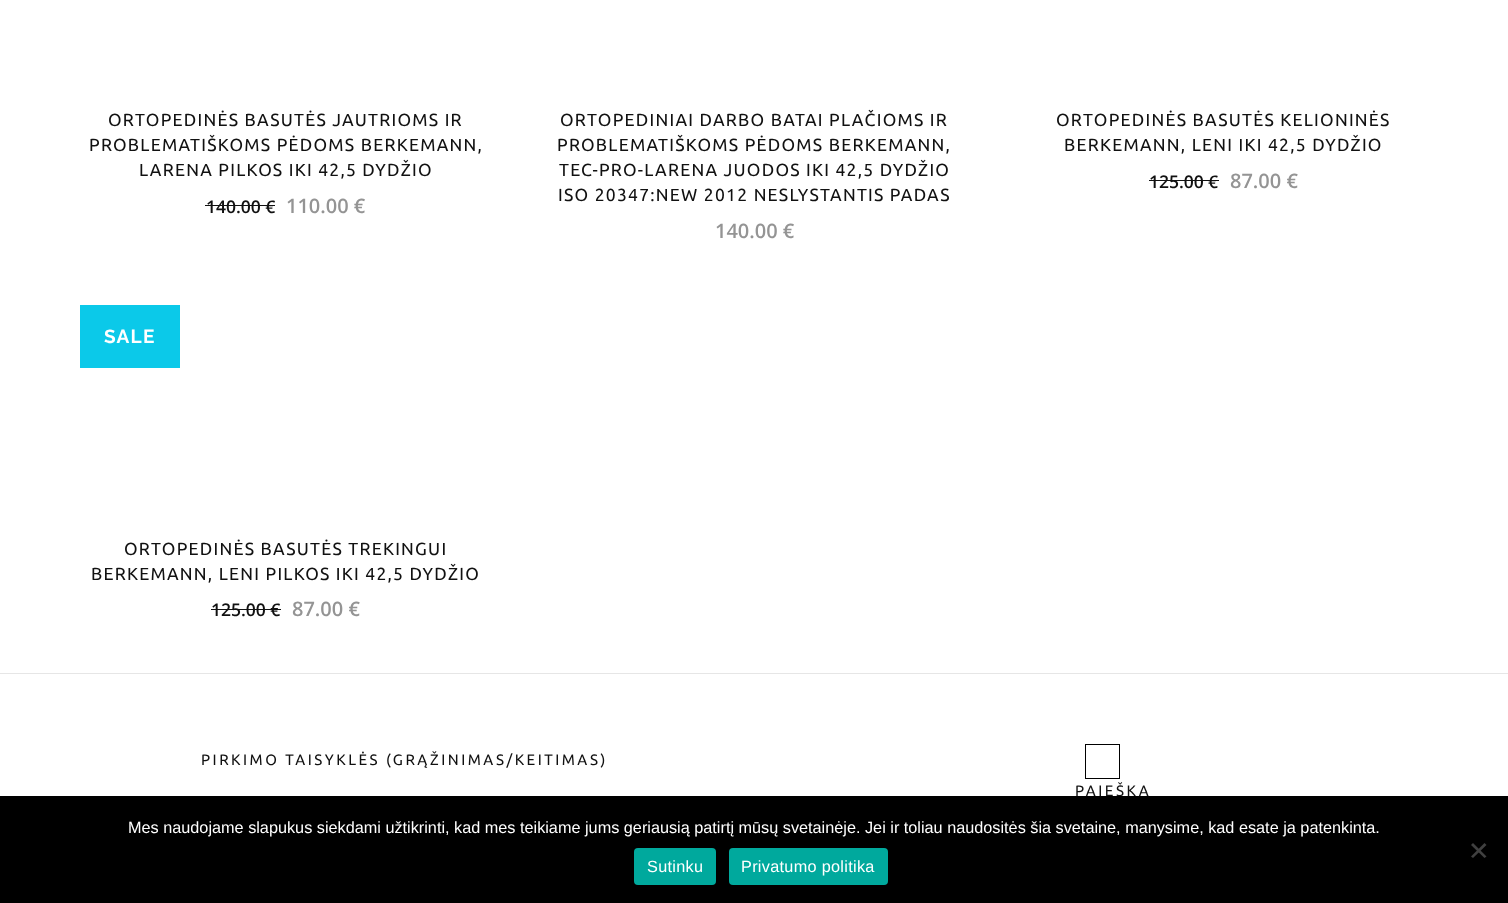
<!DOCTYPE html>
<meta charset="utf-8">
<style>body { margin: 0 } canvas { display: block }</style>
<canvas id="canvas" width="1508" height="903"></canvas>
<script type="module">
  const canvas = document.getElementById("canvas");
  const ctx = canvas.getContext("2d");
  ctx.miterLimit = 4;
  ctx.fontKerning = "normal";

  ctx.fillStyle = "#ffffff";
  ctx.fillRect(0, 0, 1508, 903);
  ctx.letterSpacing = "1.25px";
  ctx.font = "17.5px Ubuntu";
  ctx.fillStyle = "#111111";
  ctx.fillText("ORTOPEDINĖS BASUTĖS JAUTRIOMS IR", 108, 126);
  ctx.fillText("PROBLEMATIŠKOMS PĖDOMS BERKEMANN,", 89, 151);
  ctx.fillText("LARENA PILKOS IKI 42,5 DYDŽIO", 139, 176);
  ctx.letterSpacing = "0px";
  ctx.font = "600 17.5px Open Sans";
  ctx.fillText("140.00 €", 206, 213);
  ctx.fillRect(205, 205, 70, 1);
  ctx.font = "600 20px Open Sans";
  ctx.fillStyle = "#949494";
  ctx.fillText("110.00 €", 286, 213);
  ctx.letterSpacing = "1.25px";
  ctx.font = "17.5px Ubuntu";
  ctx.fillStyle = "#111111";
  ctx.fillText("ORTOPEDINIAI DARBO BATAI PLAČIOMS IR", 560, 126);
  ctx.fillText("PROBLEMATIŠKOMS PĖDOMS BERKEMANN,", 557, 151);
  ctx.fillText("TEC-PRO-LARENA JUODOS IKI 42,5 DYDŽIO", 559, 176);
  ctx.fillText("ISO 20347:NEW 2012 NESLYSTANTIS PADAS", 558, 201);
  ctx.letterSpacing = "0px";
  ctx.font = "600 20px Open Sans";
  ctx.fillStyle = "#949494";
  ctx.fillText("140.00 €", 715, 238);
  ctx.letterSpacing = "1.25px";
  ctx.font = "17.5px Ubuntu";
  ctx.fillStyle = "#111111";
  ctx.fillText("ORTOPEDINĖS BASUTĖS KELIONINĖS", 1056, 126);
  ctx.fillText("BERKEMANN, LENI IKI 42,5 DYDŽIO", 1064, 151);
  ctx.letterSpacing = "0px";
  ctx.font = "600 17.5px Open Sans";
  ctx.fillText("125.00", 1149, 188);
  ctx.fillRect(1149, 180, 60, 1);
  ctx.fillText("€", 1208, 188);
  ctx.fillRect(1209, 180, 10, 1);
  ctx.font = "600 20px Open Sans";
  ctx.fillStyle = "#949494";
  ctx.fillText("87.00 €", 1230, 188);
  ctx.fillStyle = "#0bc9e9";
  ctx.fillRect(80, 305, 100, 63);
  ctx.letterSpacing = "1.25px";
  ctx.font = "bold 19px Raleway";
  ctx.fillStyle = "#ffffff";
  ctx.fillText("SALE", 104, 343);
  ctx.font = "17.5px Ubuntu";
  ctx.fillStyle = "#111111";
  ctx.fillText("ORTOPEDINĖS BASUTĖS TREKINGUI", 124, 555);
  ctx.fillText("BERKEMANN, LENI PILKOS IKI 42,5 DYDŽIO", 91, 580);
  ctx.letterSpacing = "0px";
  ctx.font = "600 17.5px Open Sans";
  ctx.fillText("125.00 €", 211, 616);
  ctx.fillRect(211, 609, 70, 1);
  ctx.font = "600 20px Open Sans";
  ctx.fillStyle = "#949494";
  ctx.fillText("87.00 €", 292, 616);
  ctx.fillStyle = "#e6e6e6";
  ctx.fillRect(0, 673, 1508, 1);
  ctx.letterSpacing = "2.5px";
  ctx.font = "15px Ubuntu";
  ctx.fillStyle = "#111111";
  ctx.fillText("PIRKIMO TAISYKLĖS (GRĄŽINIMAS/KEITIMAS)", 201, 765);
  ctx.strokeStyle = "#000000";
  ctx.strokeRect(1085.5, 744.5, 34, 34);
  ctx.fillText("PAIEŠKA", 1075, 796);
  ctx.fillStyle = "#000000";
  ctx.fillRect(0, 796, 1508, 107);
  ctx.letterSpacing = "0px";
  ctx.font = "16.25px Liberation Sans";
  ctx.fillStyle = "#ffffff";
  ctx.fillText("Mes naudojame slapukus siekdami užtikrinti, kad mes teikiame jums geriausią patirtį mūsų svetainėje. Jei ir toliau naudositės šia svetaine, manysime, kad esate ja patenkinta.", 128, 833);
  ctx.fillStyle = "#404040";
  ctx.beginPath();
  ctx.moveTo(1484.5, 843);
  ctx.lineTo(1486.5, 845);
  ctx.lineTo(1473, 858);
  ctx.lineTo(1471, 856.5);
  ctx.closePath();
  ctx.fill();
  ctx.beginPath();
  ctx.moveTo(1471, 845);
  ctx.lineTo(1473, 843);
  ctx.lineTo(1486.5, 856.5);
  ctx.lineTo(1484.5, 858);
  ctx.closePath();
  ctx.fill();
  ctx.fillStyle = "#00a99d";
  ctx.beginPath();
  ctx.roundRect(634, 848, 82, 37, 4);
  ctx.fill();
  ctx.letterSpacing = "0.3px";
  ctx.fillStyle = "#ffffff";
  ctx.fillText("Sutinku", 647, 872);
  ctx.fillStyle = "#00a99d";
  ctx.beginPath();
  ctx.roundRect(729, 848, 159, 37, 4);
  ctx.fill();
  ctx.fillStyle = "#ffffff";
  ctx.fillText("Privatumo politika", 741, 872);
</script>
